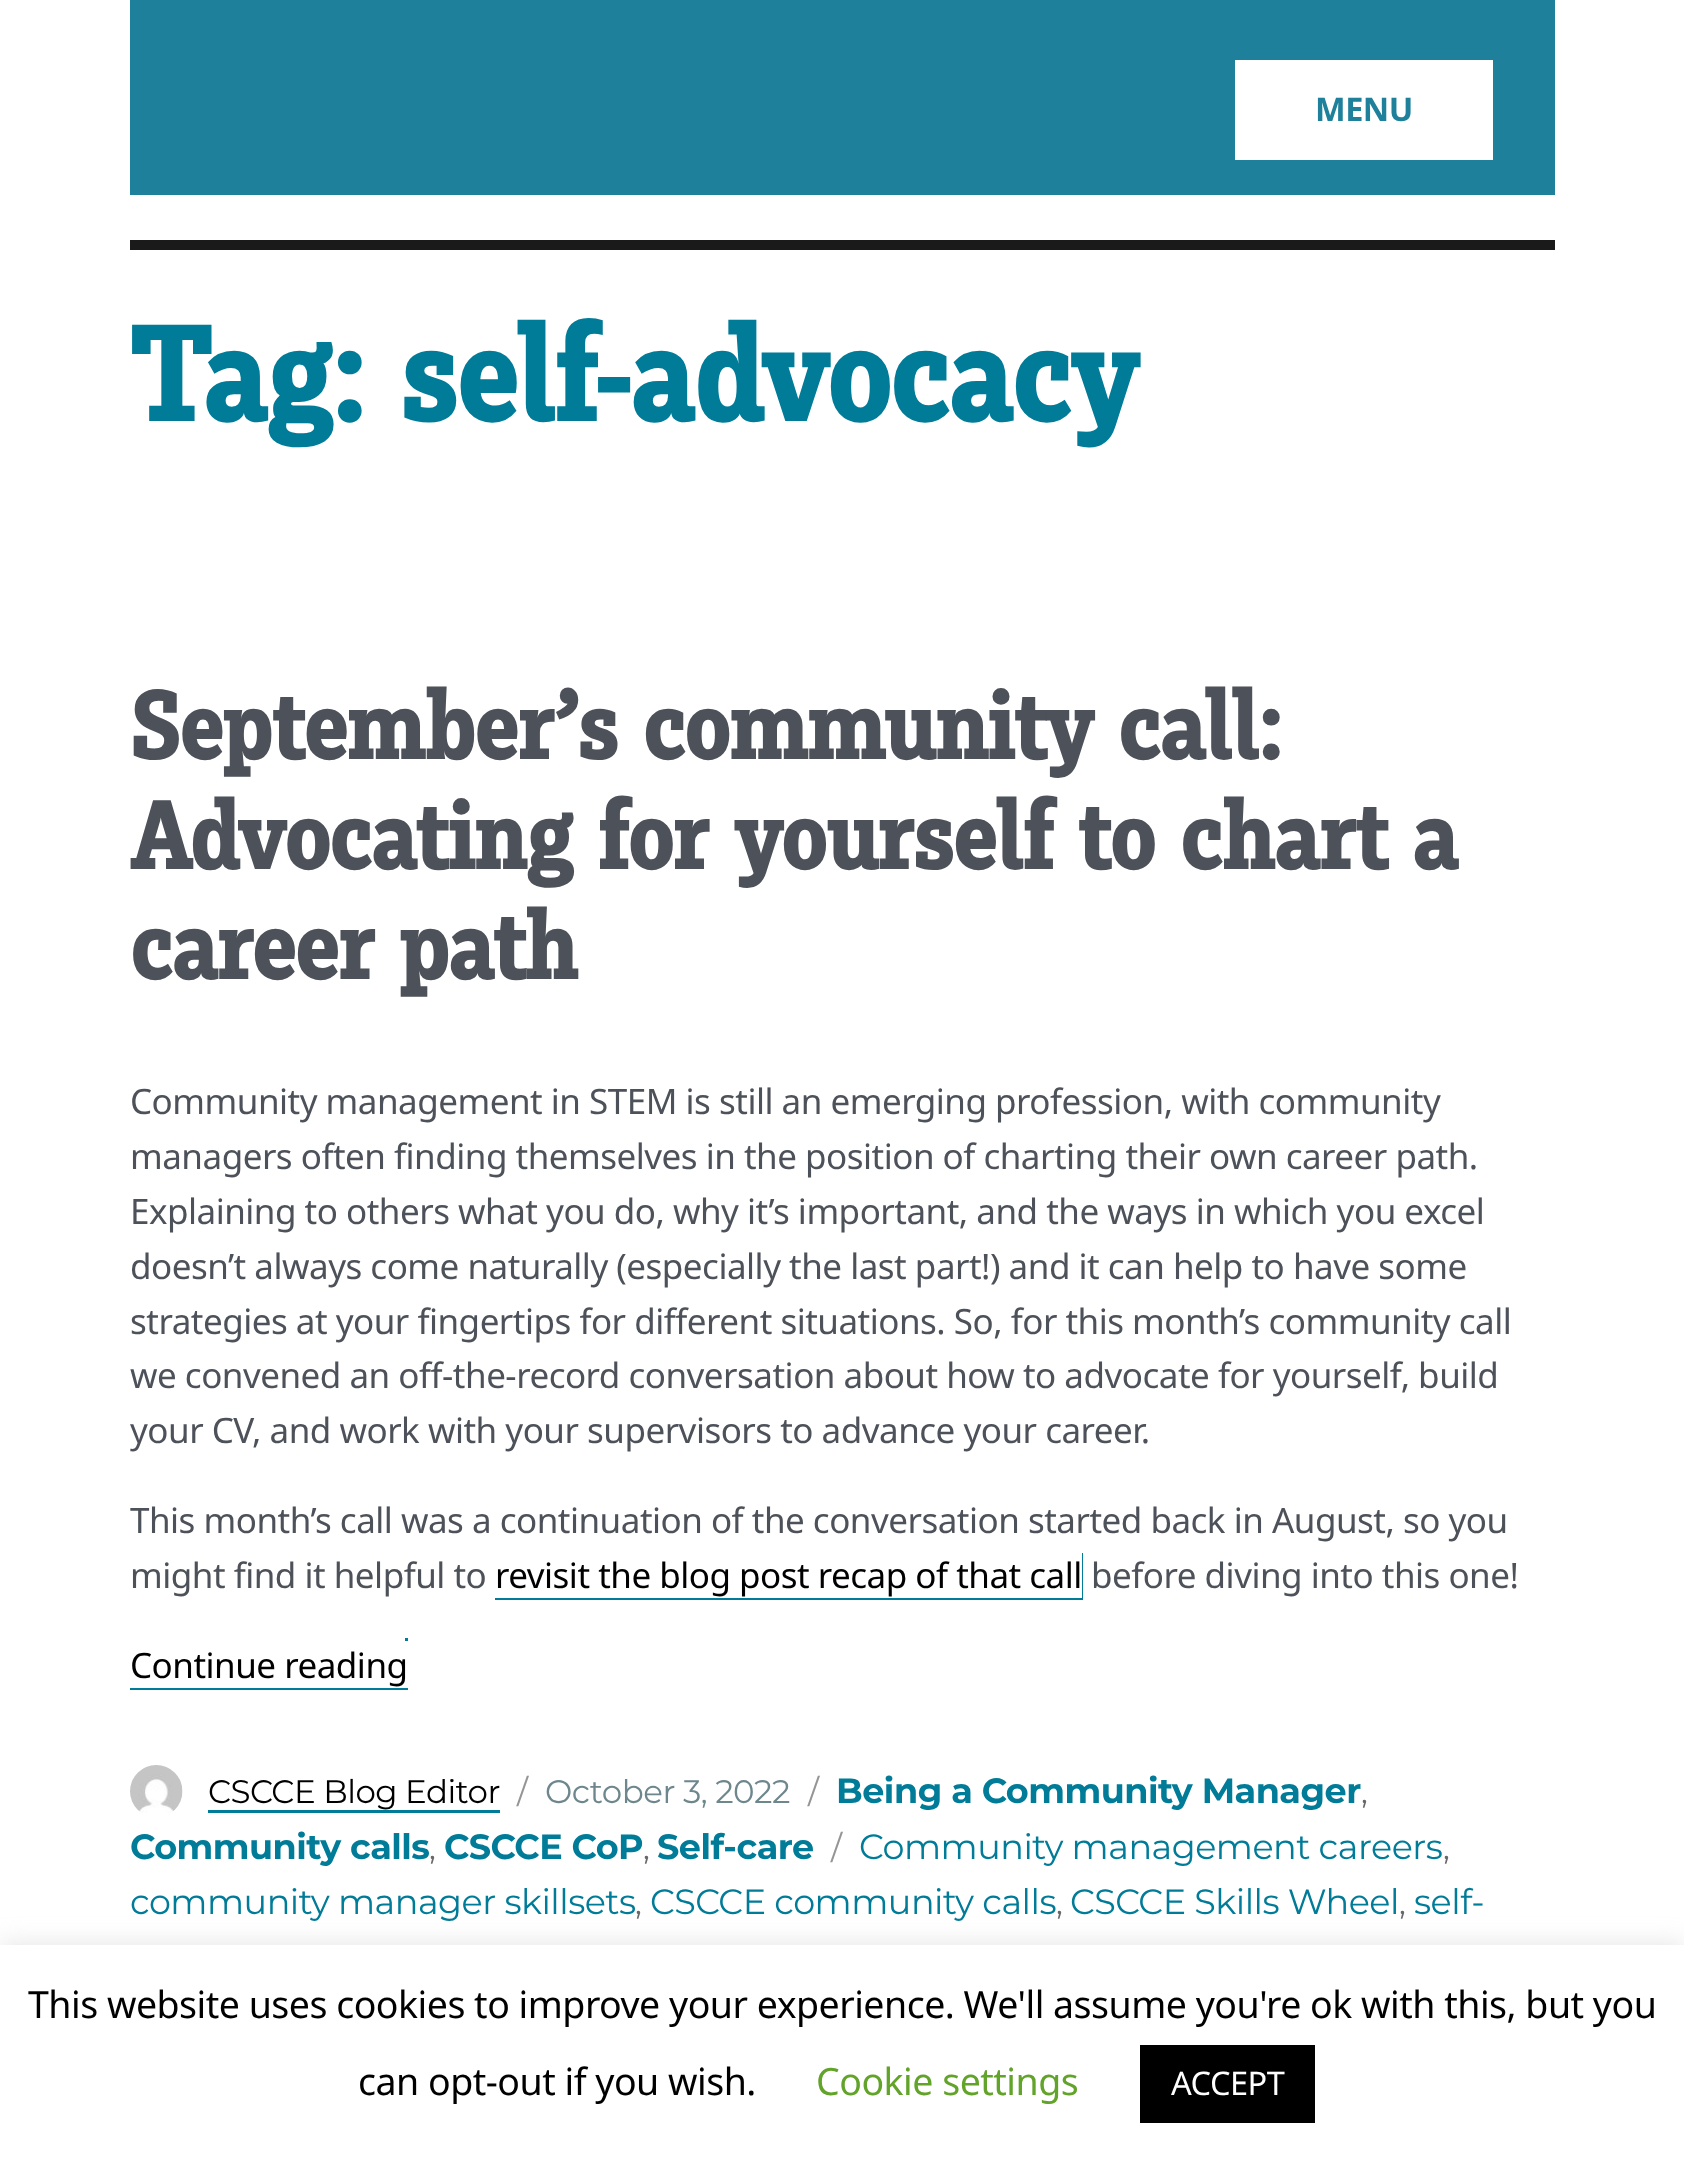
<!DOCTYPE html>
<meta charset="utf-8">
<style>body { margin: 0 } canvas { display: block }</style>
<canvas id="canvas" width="1684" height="2165"></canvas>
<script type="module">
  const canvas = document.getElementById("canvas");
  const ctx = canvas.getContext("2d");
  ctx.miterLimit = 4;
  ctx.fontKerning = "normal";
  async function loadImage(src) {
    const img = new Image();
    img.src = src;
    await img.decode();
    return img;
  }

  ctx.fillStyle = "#ffffff";
  ctx.fillRect(0, 0, 1684, 2165);
  ctx.fillStyle = "#1e809a";
  ctx.fillRect(130, 0, 1425, 195);
  ctx.fillStyle = "#ffffff";
  ctx.fillRect(1235, 60, 258, 100);
  ctx.letterSpacing = "-0.5px";
  ctx.font = "bold 32.5px Noto Sans";
  ctx.fillStyle = "#1e809a";
  ctx.fillText("MENU", 1315, 121);
  ctx.fillStyle = "#1a1a1a";
  ctx.fillRect(130, 240, 1425, 10);
  ctx.font = "bold 140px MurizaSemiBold";
  ctx.fillStyle = "#007b98";
  ctx.fillText("Tag: self-advocacy", 130, 421);
  ctx.font = "bold 100px MurizaSemiBold";
  ctx.fillStyle = "#4d5159";
  ctx.fillText("September’s community call:", 130, 759);
  ctx.fillText("Advocating for yourself to chart a", 130, 869);
  ctx.fillText("career path", 130, 979);
  ctx.font = "35px Noto Sans";
  ctx.fillText("Community management in STEM is still an emerging profession, with community", 130, 1114);
  ctx.fillText("managers often finding themselves in the position of charting their own career path.", 130, 1169);
  ctx.fillText("Explaining to others what you do, why it’s important, and the ways in which you excel", 130, 1224);
  ctx.fillText("doesn’t always come naturally (especially the last part!) and it can help to have some", 130, 1279);
  ctx.fillText("strategies at your fingertips for different situations. So, for this month’s community call", 130, 1334);
  ctx.fillText("we convened an off-the-record conversation about how to advocate for yourself, build", 130, 1388);
  ctx.fillText("your CV, and work with your supervisors to advance your career.", 130, 1443);
  ctx.fillText("This month’s call was a continuation of the conversation started back in August, so you", 130, 1533);
  ctx.fillText("might find it helpful to", 130, 1588);
  ctx.fillStyle = "#007b98";
  ctx.beginPath();
  ctx.moveTo(495, 1598);
  ctx.lineTo(495, 1600);
  ctx.lineTo(1083, 1600);
  ctx.lineTo(1083, 1553);
  ctx.lineTo(1082, 1553);
  ctx.lineTo(1082, 1598);
  ctx.closePath();
  ctx.fill();
  ctx.fillStyle = "#000000";
  ctx.fillText("revisit the blog post recap of that call", 495, 1588);
  ctx.fillStyle = "#4d5159";
  ctx.fillText("before diving into this one!", 1091, 1588);
  ctx.fillStyle = "#000000";
  ctx.fillText("Continue reading", 130, 1678);
  ctx.fillStyle = "#007b98";
  ctx.beginPath();
  ctx.moveTo(130, 1688);
  ctx.lineTo(130, 1690);
  ctx.lineTo(408, 1690);
  ctx.lineTo(408, 1643);
  ctx.lineTo(408, 1688);
  ctx.closePath();
  ctx.fill();
  ctx.fillRect(405, 1638, 3, 3);
  ctx.font = "bold 35px Montserrat";
  ctx.fillText("Being a Community Manager", 836, 1803);
  ctx.font = "32.5px Montserrat";
  ctx.fillStyle = "#686868";
  ctx.fillText(",", 1361, 1803);
  ctx.font = "bold 35px Montserrat";
  ctx.fillStyle = "#007b98";
  ctx.fillText("Community calls", 130, 1859);
  ctx.font = "32.5px Montserrat";
  ctx.fillStyle = "#686868";
  ctx.fillText(",", 429, 1859);
  ctx.font = "bold 35px Montserrat";
  ctx.fillStyle = "#007b98";
  ctx.fillText("CSCCE CoP", 444, 1859);
  ctx.font = "32.5px Montserrat";
  ctx.fillStyle = "#686868";
  ctx.fillText(",", 643, 1859);
  ctx.font = "bold 35px Montserrat";
  ctx.fillStyle = "#007b98";
  ctx.fillText("Self-care", 657, 1859);
  ctx.font = "32.5px Montserrat";
  ctx.fillStyle = "#959595";
  ctx.fillText("/", 831, 1859);
  ctx.drawImage(await loadImage("img1.png"), 130, 1765, 53, 48);
  ctx.fillStyle = "#000000";
  ctx.fillText("CSCCE Blog Editor", 208, 1803);
  ctx.fillStyle = "#007b98";
  ctx.fillRect(208, 1810, 292, 3);
  ctx.fillStyle = "#959595";
  ctx.fillText("/", 517, 1803);
  ctx.fillStyle = "#6d878d";
  ctx.fillText("October 3, 2022", 545, 1803);
  ctx.fillStyle = "#959595";
  ctx.fillText("/", 808, 1803);
  ctx.font = "35px Montserrat";
  ctx.fillStyle = "#007b98";
  ctx.fillText("Community management careers", 859, 1859);
  ctx.font = "32.5px Montserrat";
  ctx.fillStyle = "#686868";
  ctx.fillText(",", 1443, 1859);
  ctx.font = "35px Montserrat";
  ctx.fillStyle = "#007b98";
  ctx.fillText("community manager skillsets", 130, 1914);
  ctx.font = "32.5px Montserrat";
  ctx.fillStyle = "#686868";
  ctx.fillText(",", 635, 1914);
  ctx.font = "35px Montserrat";
  ctx.fillStyle = "#007b98";
  ctx.fillText("CSCCE community calls", 650, 1914);
  ctx.font = "32.5px Montserrat";
  ctx.fillStyle = "#686868";
  ctx.fillText(",", 1056, 1914);
  ctx.font = "35px Montserrat";
  ctx.fillStyle = "#007b98";
  ctx.fillText("CSCCE Skills Wheel", 1070, 1914);
  ctx.font = "32.5px Montserrat";
  ctx.fillStyle = "#686868";
  ctx.fillText(",", 1399, 1914);
  ctx.font = "35px Montserrat";
  ctx.fillStyle = "#007b98";
  ctx.fillText("self-", 1414, 1914);
  ctx.fillStyle = "rgba(172, 171, 171, 0.3)";
  ctx.filter = "blur(12.5px)";
  ctx.beginPath();
  ctx.rect(0, 1943, 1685, 220);
  ctx.fill();
  ctx.filter = "none";
  ctx.fillStyle = "#ffffff";
  ctx.fillRect(0, 1945, 1684, 220);
  ctx.font = "37.5px Noto Sans";
  ctx.fillStyle = "#000000";
  ctx.fillText("This website uses cookies to improve your experience. We'll assume you're ok with this, but you", 28, 2018);
  ctx.fillText("can opt-out if you wish.", 358, 2095);
  ctx.fillStyle = "#62a329";
  ctx.fillText("Cookie settings", 816, 2095);
  ctx.fillStyle = "#000000";
  ctx.fillRect(1140, 2045, 175, 78);
  ctx.font = "32.5px Noto Sans";
  ctx.fillStyle = "#ffffff";
  ctx.fillText("ACCEPT", 1171, 2095);
</script>
